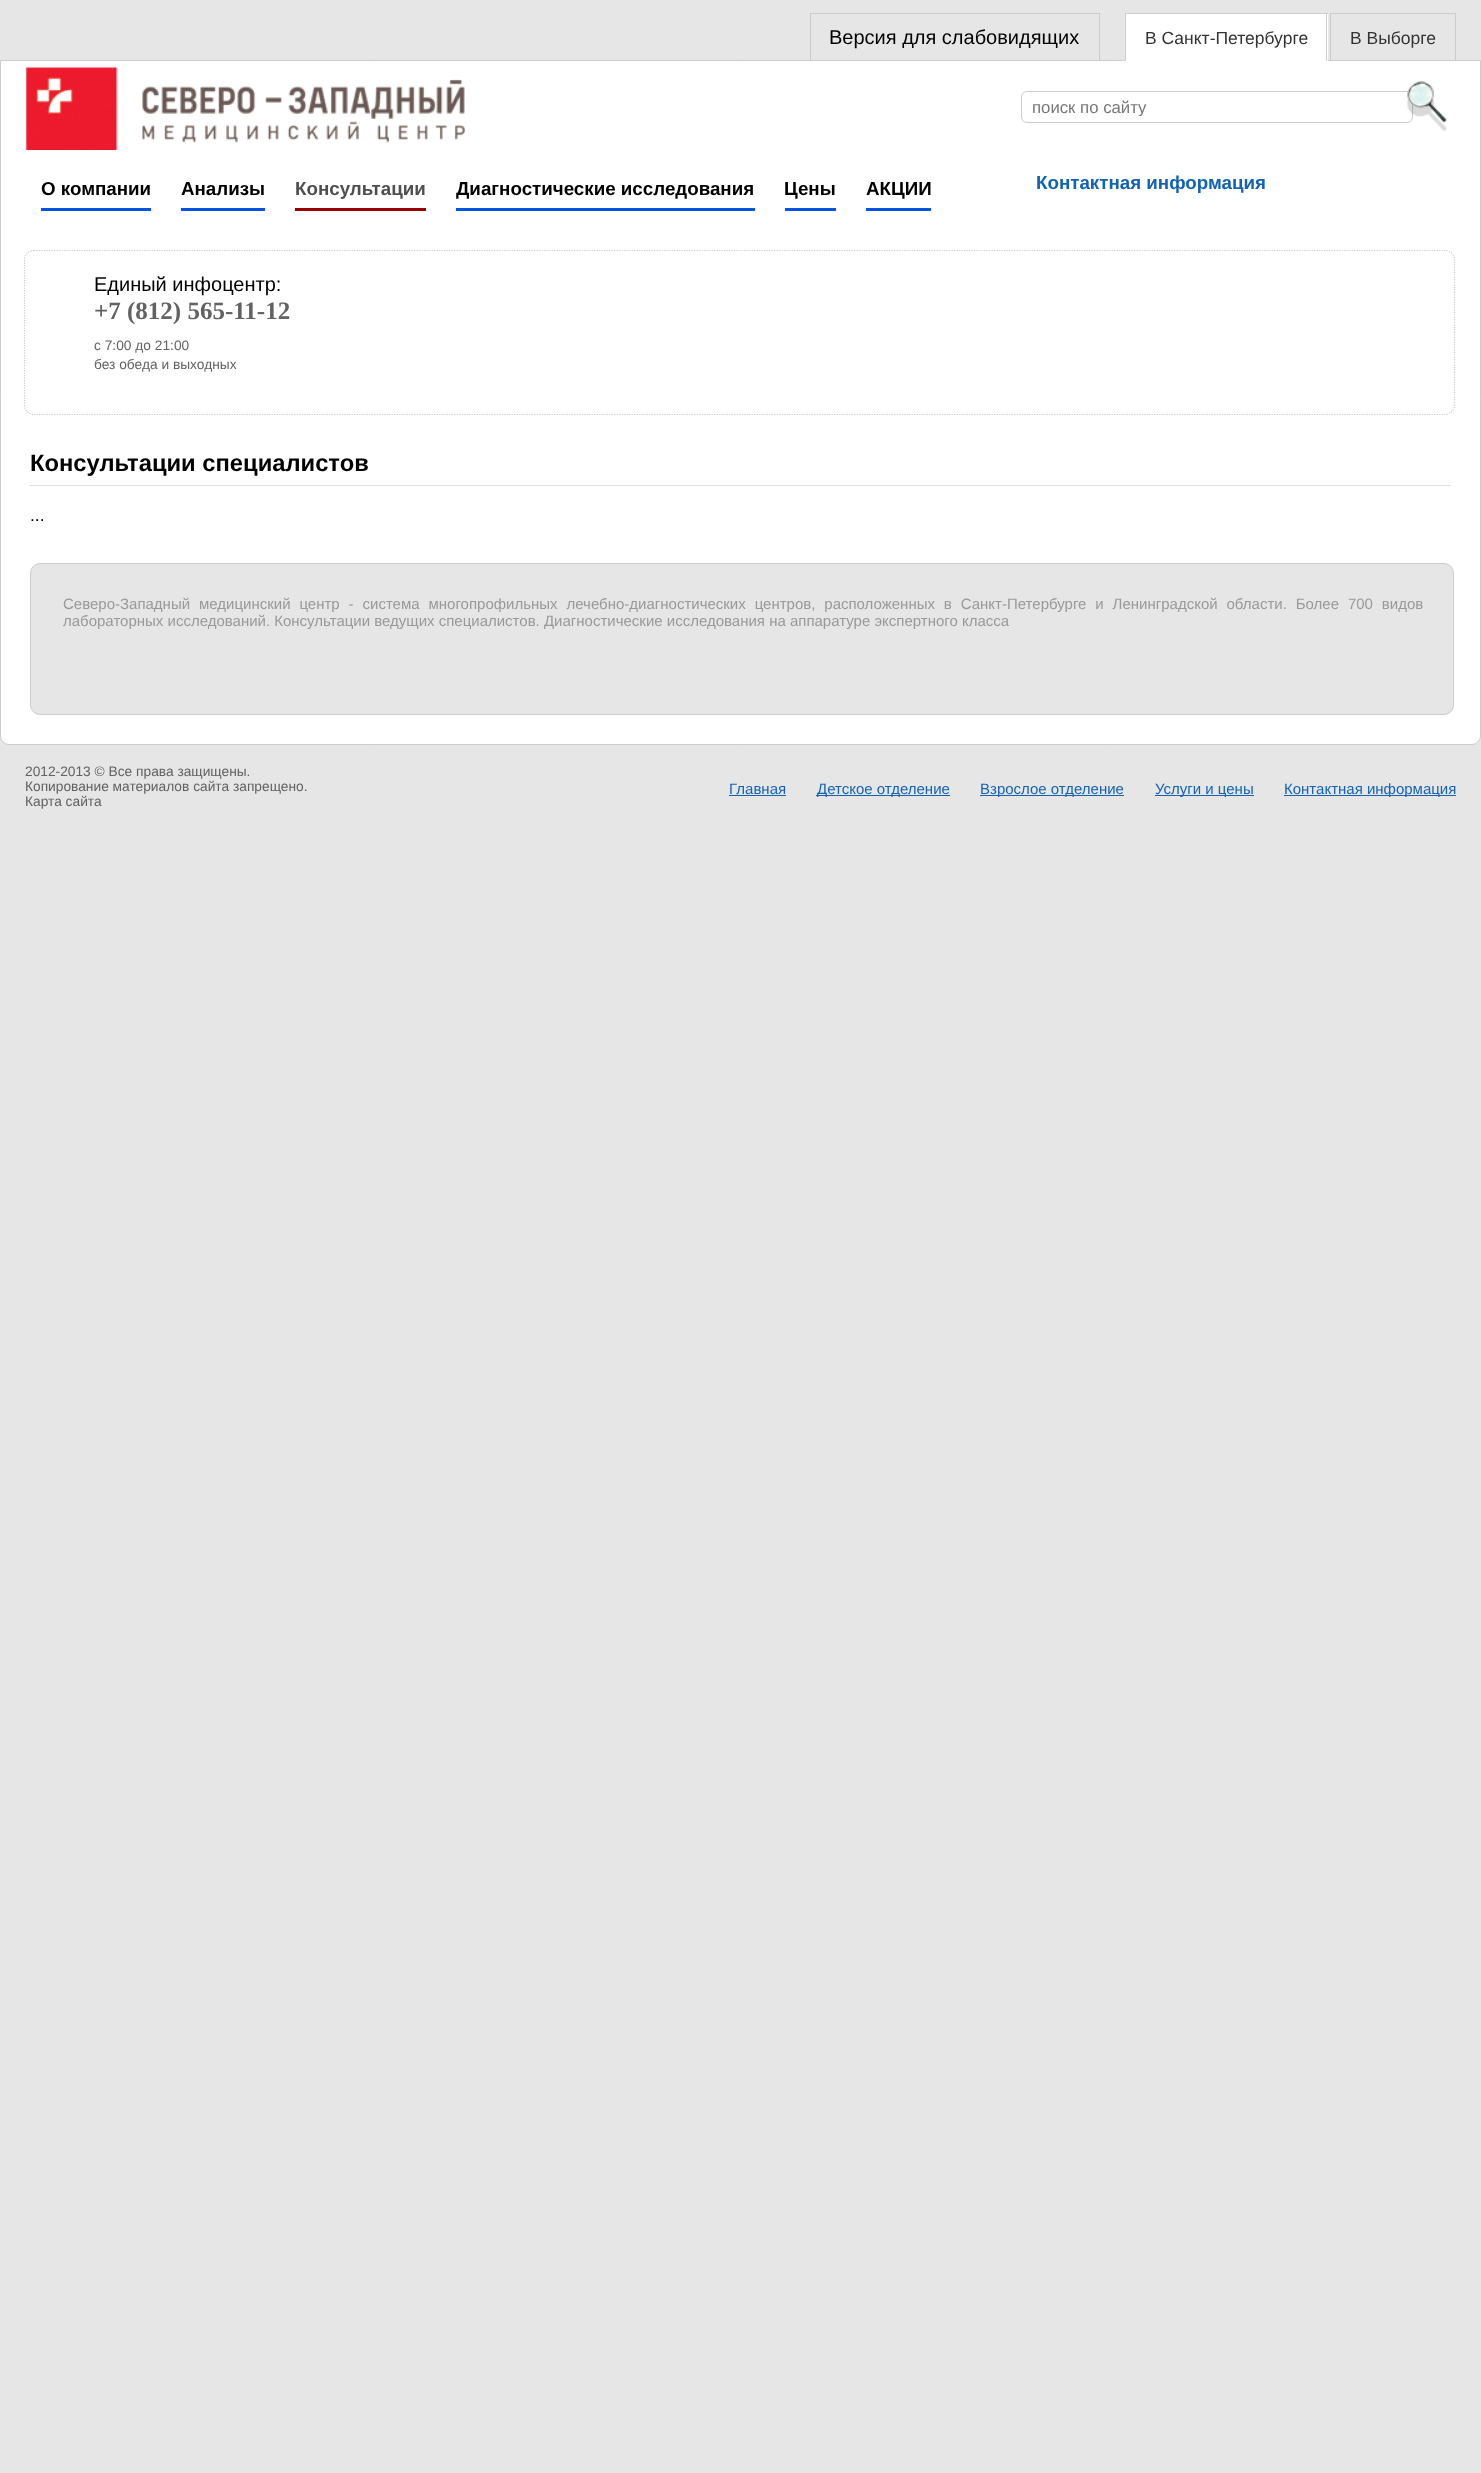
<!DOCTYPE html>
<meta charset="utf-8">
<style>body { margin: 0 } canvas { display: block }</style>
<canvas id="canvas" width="1481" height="2473"></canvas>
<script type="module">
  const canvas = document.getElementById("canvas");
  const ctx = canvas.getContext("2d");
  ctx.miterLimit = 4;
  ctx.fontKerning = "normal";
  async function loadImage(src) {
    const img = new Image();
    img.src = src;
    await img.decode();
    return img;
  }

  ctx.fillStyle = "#e7e6e6";
  ctx.fillRect(0, 0, 1481, 2473);
  ctx.fillStyle = "#cccccc";
  ctx.fillRect(810, 13, 290, 1);
  ctx.fillStyle = "#ffffff";
  ctx.beginPath();
  ctx.roundRect(0.5, 60.5, 1480, 684, [0, 0, 8.5, 8.5]);
  ctx.fill();
  ctx.strokeStyle = "#cccccc";
  ctx.stroke();
  ctx.fillStyle = "#cccccc";
  ctx.fillRect(1099, 13, 1, 48);
  ctx.fillRect(810, 13, 1, 48);
  ctx.font = "20px Liberation Sans";
  ctx.fillStyle = "#000000";
  ctx.fillText("Версия для слабовидящих", 829, 44);
  ctx.fillStyle = "#ffffff";
  ctx.fillRect(1126, 14, 202, 47);
  ctx.fillStyle = "#cccccc";
  ctx.fillRect(1125, 13, 203, 1);
  ctx.fillRect(1326, 13, 1, 48);
  ctx.fillRect(1125, 13, 1, 48);
  ctx.font = "17.5px Liberation Sans";
  ctx.fillStyle = "#333333";
  ctx.fillText("В Санкт-Петербурге", 1145, 44);
  ctx.fillStyle = "#cccccc";
  ctx.fillRect(1330, 13, 126, 1);
  ctx.fillRect(1455, 13, 1, 48);
  ctx.fillRect(1330, 13, 1, 48);
  ctx.fillStyle = "#333333";
  ctx.fillText("В Выборге", 1350, 44);
  ctx.drawImage(await loadImage("img1.png"), 26, 67, 439, 83);
  ctx.beginPath();
  ctx.roundRect(1021.5, 91.5, 391, 31, 5.5);
  ctx.stroke();
  ctx.save();
  ctx.beginPath();
  ctx.rect(1031, 98, 372, 18);
  ctx.clip();
  ctx.font = "16.75px Liberation Sans";
  ctx.fillStyle = "#777777";
  ctx.fillText("поиск по сайту", 1032, 113);
  ctx.restore();
  ctx.drawImage(await loadImage("img2.png"), 1406, 81, 41, 51);
  ctx.fillStyle = "#0054df";
  ctx.fillRect(41, 208, 110, 3);
  ctx.font = "bold 18.75px Liberation Sans";
  ctx.fillStyle = "#000000";
  ctx.fillText("О компании", 41, 195);
  ctx.fillStyle = "#0054df";
  ctx.fillRect(181, 208, 84, 3);
  ctx.fillStyle = "#000000";
  ctx.fillText("Анализы", 181, 195);
  ctx.fillStyle = "#990000";
  ctx.fillRect(295, 208, 131, 3);
  ctx.fillStyle = "#4f4f4f";
  ctx.fillText("Консультации", 295, 195);
  ctx.fillStyle = "#0054df";
  ctx.fillRect(456, 208, 299, 3);
  ctx.fillStyle = "#000000";
  ctx.fillText("Диагностические исследования", 456, 195);
  ctx.fillStyle = "#0054df";
  ctx.fillRect(785, 208, 51, 3);
  ctx.fillStyle = "#000000";
  ctx.fillText("Цены", 784, 195);
  ctx.fillStyle = "#0054df";
  ctx.fillRect(866, 208, 65, 3);
  ctx.fillStyle = "#000000";
  ctx.fillText("АКЦИИ", 866, 195);
  ctx.fillStyle = "#1363b4";
  ctx.fillText("Контактная информация", 1036, 189);
  ctx.beginPath();
  ctx.moveTo(34, 250.5);
  ctx.lineTo(1445, 250.5);
  ctx.bezierCurveTo(1450, 250.5, 1454.5, 255, 1454.5, 260);
  ctx.lineTo(1454.5, 405);
  ctx.bezierCurveTo(1454.5, 410, 1450, 414.5, 1445, 414.5);
  ctx.lineTo(34, 414.5);
  ctx.bezierCurveTo(28.5, 414.5, 24.5, 410, 24.5, 405);
  ctx.lineTo(24.5, 260);
  ctx.bezierCurveTo(24.5, 255, 28.5, 250.5, 34, 250.5);
  ctx.closePath();
  ctx.lineWidth = 1.2;
  ctx.setLineDash([1.25, 1.25]);
  ctx.stroke();
  ctx.font = "20px Liberation Sans";
  ctx.fillStyle = "#000000";
  ctx.fillText("Единый инфоцентр:", 94, 291);
  ctx.font = "bold 25px Liberation Serif";
  ctx.fillStyle = "#626262";
  ctx.fillText("+7 (812) 565-11-12", 94, 319);
  ctx.font = "13.75px Liberation Sans";
  ctx.fillText("с 7:00 до 21:00", 94, 350);
  ctx.fillText("без обеда и выходных", 94, 369);
  ctx.fillStyle = "#dddddd";
  ctx.fillRect(30, 485, 1421, 1);
  ctx.font = "bold 23.75px Liberation Sans";
  ctx.fillStyle = "#000000";
  ctx.fillText("Консультации специалистов", 30, 471);
  ctx.font = "17.5px Liberation Sans";
  ctx.fillText("...", 30, 521);
  ctx.fillStyle = "#e7e6e6";
  ctx.beginPath();
  ctx.roundRect(30.5, 563.5, 1423, 151, 9.5);
  ctx.fill();
  ctx.lineWidth = 1;
  ctx.setLineDash([]);
  ctx.stroke();
  ctx.wordSpacing = "4.75px";
  ctx.font = "15px Liberation Sans";
  ctx.fillStyle = "#999999";
  ctx.fillText("Северо-Западный медицинский центр - система многопрофильных лечебно-диагностических центров, расположенных в Санкт-Петербурге и Ленинградской области. Более 700 видов", 63, 609);
  ctx.wordSpacing = "0px";
  ctx.fillText("лабораторных исследований. Консультации ведущих специалистов. Диагностические исследования на аппаратуре экспертного класса", 63, 626);
  ctx.font = "13.75px Liberation Sans";
  ctx.fillStyle = "#626262";
  ctx.fillText("2012-2013 © Все права защищены.", 25, 776);
  ctx.fillText("Копирование материалов сайта запрещено.", 25, 791);
  ctx.fillText("Карта сайта", 25, 806);
  ctx.font = "15px Liberation Sans";
  ctx.fillStyle = "#1363b4";
  ctx.fillText("Главная", 729, 794);
  ctx.fillRect(729, 795, 57, 1);
  ctx.fillRect(816, 795, 134, 1);
  ctx.fillText("Детское отделение", 817, 794);
  ctx.fillRect(980, 795, 144, 1);
  ctx.fillText("Взрослое отделение", 980, 794);
  ctx.fillRect(1155, 795, 99, 1);
  ctx.fillText("Услуги и цены", 1155, 794);
  ctx.fillRect(1284, 795, 172, 1);
  ctx.fillText("Контактная информация", 1284, 794);
</script>
